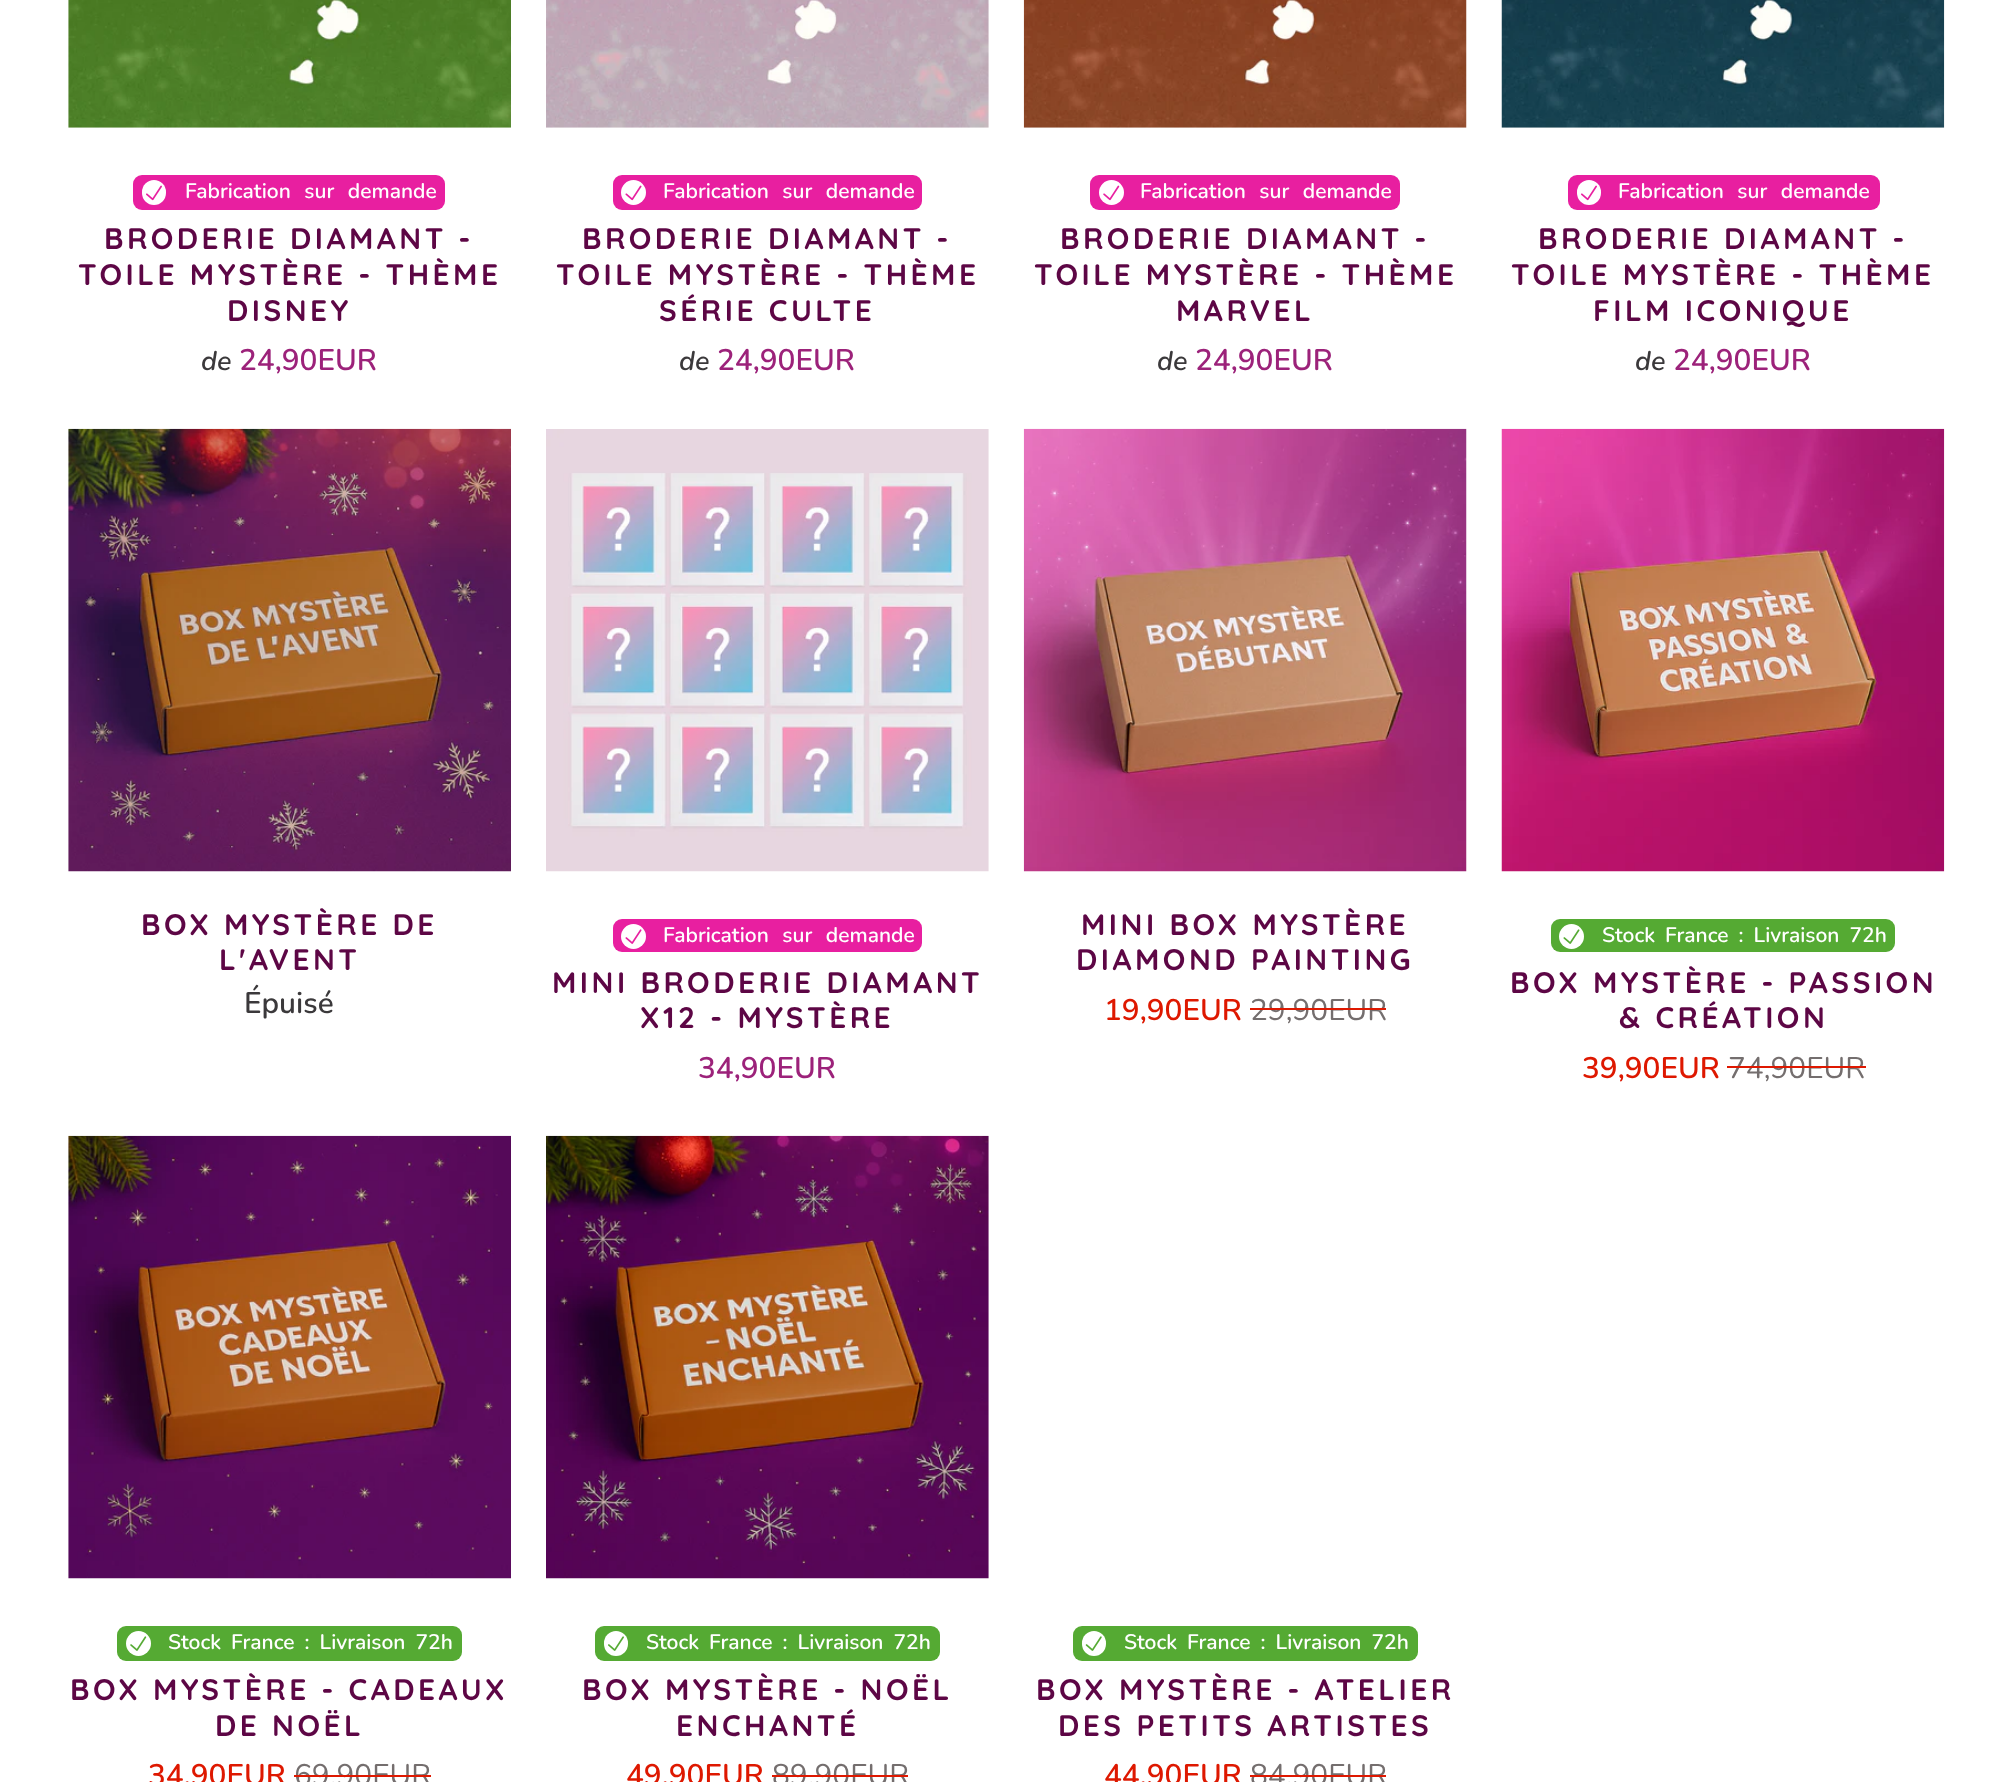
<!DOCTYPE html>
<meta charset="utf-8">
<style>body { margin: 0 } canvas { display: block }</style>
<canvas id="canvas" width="2012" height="1782"></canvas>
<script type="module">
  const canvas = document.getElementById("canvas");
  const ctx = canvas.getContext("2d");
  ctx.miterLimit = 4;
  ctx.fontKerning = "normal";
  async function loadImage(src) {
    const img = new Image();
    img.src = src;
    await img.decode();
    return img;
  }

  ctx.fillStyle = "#ffffff";
  ctx.fillRect(0, 0, 2012, 1782);
  ctx.drawImage(await loadImage("img1.png"), 68, 0, 443, 128);
  ctx.fillStyle = "#e81fa0";
  ctx.beginPath();
  ctx.roundRect(133, 175, 312, 35, 9);
  ctx.fill();
  ctx.fillStyle = "#ffffff";
  ctx.beginPath();
  ctx.roundRect(142, 180, 24, 25, 12);
  ctx.fill();
  ctx.drawImage(await loadImage("img2.png"), 146, 185, 16, 16);
  ctx.wordSpacing = "8px";
  ctx.font = "600 21px Nunito";
  ctx.fillText("Fabrication sur demande", 185, 198);
  ctx.letterSpacing = "3.5px";
  ctx.wordSpacing = "0px";
  ctx.font = "bold 29.75px Quicksand";
  ctx.fillStyle = "#5d0645";
  ctx.fillText("BRODERIE DIAMANT -", 104, 249);
  ctx.fillText("TOILE MYSTÈRE - THÈME", 78, 285);
  ctx.fillText("DISNEY", 227, 321);
  ctx.letterSpacing = "0px";
  ctx.font = "italic 600 27px Nunito";
  ctx.fillStyle = "#3b393b";
  ctx.fillText("de", 201, 370);
  ctx.font = "600 29.75px Nunito";
  ctx.fillStyle = "#9c227a";
  ctx.fillText("24,90EUR", 239, 370);
  ctx.drawImage(await loadImage("img3.png"), 546, 0, 443, 128);
  ctx.fillStyle = "#e81fa0";
  ctx.beginPath();
  ctx.roundRect(613, 175, 309, 35, 9);
  ctx.fill();
  ctx.fillStyle = "#ffffff";
  ctx.beginPath();
  ctx.arc(633.5, 192.5, 12.5, 0, Math.PI * 2);
  ctx.fill();
  ctx.drawImage(await loadImage("img4.png"), 625, 185, 17, 16);
  ctx.wordSpacing = "8px";
  ctx.font = "600 21px Nunito";
  ctx.fillText("Fabrication sur demande", 663, 198);
  ctx.letterSpacing = "3.5px";
  ctx.wordSpacing = "0px";
  ctx.font = "bold 29.75px Quicksand";
  ctx.fillStyle = "#5d0645";
  ctx.fillText("BRODERIE DIAMANT -", 582, 249);
  ctx.fillText("TOILE MYSTÈRE - THÈME", 556, 285);
  ctx.fillText("SÉRIE CULTE", 659, 321);
  ctx.letterSpacing = "0px";
  ctx.font = "italic 600 27px Nunito";
  ctx.fillStyle = "#3b393b";
  ctx.fillText("de", 679, 370);
  ctx.font = "600 29.75px Nunito";
  ctx.fillStyle = "#9c227a";
  ctx.fillText("24,90EUR", 717, 370);
  ctx.drawImage(await loadImage("img5.png"), 1023, 0, 444, 128);
  ctx.fillStyle = "#e81fa0";
  ctx.beginPath();
  ctx.roundRect(1090, 175, 310, 35, 9);
  ctx.fill();
  ctx.fillStyle = "#ffffff";
  ctx.beginPath();
  ctx.arc(1111.5, 192.5, 12.5, 0, Math.PI * 2);
  ctx.fill();
  ctx.drawImage(await loadImage("img6.png"), 1103, 185, 17, 16);
  ctx.wordSpacing = "8px";
  ctx.font = "600 21px Nunito";
  ctx.fillText("Fabrication sur demande", 1140, 198);
  ctx.letterSpacing = "3.5px";
  ctx.wordSpacing = "0px";
  ctx.font = "bold 29.75px Quicksand";
  ctx.fillStyle = "#5d0645";
  ctx.fillText("BRODERIE DIAMANT -", 1060, 249);
  ctx.fillText("TOILE MYSTÈRE - THÈME", 1034, 285);
  ctx.fillText("MARVEL", 1176, 321);
  ctx.letterSpacing = "0px";
  ctx.font = "italic 600 27px Nunito";
  ctx.fillStyle = "#3b393b";
  ctx.fillText("de", 1157, 370);
  ctx.font = "600 29.75px Nunito";
  ctx.fillStyle = "#9c227a";
  ctx.fillText("24,90EUR", 1195, 370);
  ctx.drawImage(await loadImage("img7.png"), 1501, 0, 444, 128);
  ctx.fillStyle = "#e81fa0";
  ctx.beginPath();
  ctx.roundRect(1568, 175, 312, 35, 9);
  ctx.fill();
  ctx.fillStyle = "#ffffff";
  ctx.beginPath();
  ctx.roundRect(1577, 180, 24, 25, 12);
  ctx.fill();
  ctx.drawImage(await loadImage("img2.png"), 1581, 185, 16, 16);
  ctx.wordSpacing = "8px";
  ctx.font = "600 21px Nunito";
  ctx.fillText("Fabrication sur demande", 1618, 198);
  ctx.letterSpacing = "3.5px";
  ctx.wordSpacing = "0px";
  ctx.font = "bold 29.75px Quicksand";
  ctx.fillStyle = "#5d0645";
  ctx.fillText("BRODERIE DIAMANT -", 1538, 249);
  ctx.fillText("TOILE MYSTÈRE - THÈME", 1511, 285);
  ctx.fillText("FILM ICONIQUE", 1593, 321);
  ctx.letterSpacing = "0px";
  ctx.font = "italic 600 27px Nunito";
  ctx.fillStyle = "#3b393b";
  ctx.fillText("de", 1635, 370);
  ctx.font = "600 29.75px Nunito";
  ctx.fillStyle = "#9c227a";
  ctx.fillText("24,90EUR", 1673, 370);
  ctx.drawImage(await loadImage("img8.png"), 68, 428, 443, 444);
  ctx.letterSpacing = "3.5px";
  ctx.font = "bold 29.75px Quicksand";
  ctx.fillStyle = "#5d0645";
  ctx.fillText("BOX MYSTÈRE DE", 141, 935);
  ctx.fillText("L'AVENT", 219, 970);
  ctx.letterSpacing = "0px";
  ctx.font = "600 29.75px Nunito";
  ctx.fillStyle = "#3b393b";
  ctx.fillText("Épuisé", 244, 1013);
  ctx.drawImage(await loadImage("img9.png"), 546, 429, 443, 443);
  ctx.fillStyle = "#e81fa0";
  ctx.beginPath();
  ctx.roundRect(613, 919, 309, 33, 9);
  ctx.fill();
  ctx.fillStyle = "#ffffff";
  ctx.beginPath();
  ctx.arc(633.5, 936.5, 12.5, 0, Math.PI * 2);
  ctx.fill();
  ctx.drawImage(await loadImage("img10.png"), 625, 929, 17, 15);
  ctx.wordSpacing = "8px";
  ctx.font = "600 21px Nunito";
  ctx.fillText("Fabrication sur demande", 663, 942);
  ctx.letterSpacing = "3.5px";
  ctx.wordSpacing = "0px";
  ctx.font = "bold 29.75px Quicksand";
  ctx.fillStyle = "#5d0645";
  ctx.fillText("MINI BRODERIE DIAMANT", 552, 993);
  ctx.fillText("X12 - MYSTÈRE", 640, 1028);
  ctx.letterSpacing = "0px";
  ctx.font = "600 29.75px Nunito";
  ctx.fillStyle = "#9c227a";
  ctx.fillText("34,90EUR", 698, 1078);
  ctx.drawImage(await loadImage("img11.png"), 1023, 428, 444, 444);
  ctx.letterSpacing = "3.5px";
  ctx.font = "bold 29.75px Quicksand";
  ctx.fillStyle = "#5d0645";
  ctx.fillText("MINI BOX MYSTÈRE", 1081, 935);
  ctx.fillText("DIAMOND PAINTING", 1076, 970);
  ctx.letterSpacing = "0px";
  ctx.font = "600 29.75px Nunito";
  ctx.fillStyle = "#de1800";
  ctx.fillText("19,90EUR", 1104, 1020);
  ctx.font = "29.75px Nunito";
  ctx.fillStyle = "#746e6e";
  ctx.fillText("29,90EUR", 1250, 1020);
  ctx.fillStyle = "#de1800";
  ctx.fillRect(1250, 1008, 136, 2);
  ctx.drawImage(await loadImage("img12.png"), 1501, 428, 444, 444);
  ctx.fillStyle = "#55aa33";
  ctx.beginPath();
  ctx.roundRect(1551, 919, 344, 33, 9);
  ctx.fill();
  ctx.fillStyle = "#ffffff";
  ctx.beginPath();
  ctx.arc(1571.5, 936.5, 12.5, 0, Math.PI * 2);
  ctx.fill();
  ctx.drawImage(await loadImage("img13.png"), 1563, 929, 17, 15);
  ctx.wordSpacing = "4.5px";
  ctx.font = "600 21px Nunito";
  ctx.fillText("Stock France : Livraison 72h", 1602, 942);
  ctx.letterSpacing = "3.5px";
  ctx.wordSpacing = "0px";
  ctx.font = "bold 29.75px Quicksand";
  ctx.fillStyle = "#5d0645";
  ctx.fillText("BOX MYSTÈRE - PASSION", 1510, 993);
  ctx.fillText("& CRÉATION", 1619, 1028);
  ctx.letterSpacing = "0px";
  ctx.font = "600 29.75px Nunito";
  ctx.fillStyle = "#de1800";
  ctx.fillText("39,90EUR", 1582, 1078);
  ctx.font = "29.75px Nunito";
  ctx.fillStyle = "#746e6e";
  ctx.fillText("74,90EUR", 1728, 1078);
  ctx.fillStyle = "#de1800";
  ctx.fillRect(1727, 1066, 139, 2);
  ctx.drawImage(await loadImage("img14.png"), 68, 1135, 443, 444);
  ctx.fillStyle = "#55aa33";
  ctx.beginPath();
  ctx.roundRect(117, 1626, 345, 35, 9);
  ctx.fill();
  ctx.fillStyle = "#ffffff";
  ctx.beginPath();
  ctx.arc(138.5, 1643.5, 12.5, 0, Math.PI * 2);
  ctx.fill();
  ctx.drawImage(await loadImage("img15.png"), 130, 1636, 17, 15);
  ctx.wordSpacing = "4.5px";
  ctx.font = "600 21px Nunito";
  ctx.fillText("Stock France : Livraison 72h", 168, 1649);
  ctx.letterSpacing = "3.5px";
  ctx.wordSpacing = "0px";
  ctx.font = "bold 29.75px Quicksand";
  ctx.fillStyle = "#5d0645";
  ctx.fillText("BOX MYSTÈRE - CADEAUX", 70, 1700);
  ctx.fillText("DE NOËL", 215, 1736);
  ctx.letterSpacing = "0px";
  ctx.font = "600 29.75px Nunito";
  ctx.fillStyle = "#de1800";
  ctx.fillText("34,90EUR", 148, 1785);
  ctx.font = "29.75px Nunito";
  ctx.fillStyle = "#746e6e";
  ctx.fillText("69,90EUR", 294, 1785);
  ctx.fillStyle = "#de1800";
  ctx.fillRect(294, 1775, 137, 2);
  ctx.drawImage(await loadImage("img16.png"), 546, 1135, 443, 444);
  ctx.fillStyle = "#55aa33";
  ctx.beginPath();
  ctx.roundRect(595, 1626, 345, 35, 9);
  ctx.fill();
  ctx.fillStyle = "#ffffff";
  ctx.beginPath();
  ctx.roundRect(604, 1631, 24, 25, 12);
  ctx.fill();
  ctx.drawImage(await loadImage("img17.png"), 608, 1636, 16, 15);
  ctx.wordSpacing = "4.5px";
  ctx.font = "600 21px Nunito";
  ctx.fillText("Stock France : Livraison 72h", 646, 1649);
  ctx.letterSpacing = "3.5px";
  ctx.wordSpacing = "0px";
  ctx.font = "bold 29.75px Quicksand";
  ctx.fillStyle = "#5d0645";
  ctx.fillText("BOX MYSTÈRE - NOËL", 582, 1700);
  ctx.fillText("ENCHANTÉ", 676, 1736);
  ctx.letterSpacing = "0px";
  ctx.font = "600 29.75px Nunito";
  ctx.fillStyle = "#de1800";
  ctx.fillText("49,90EUR", 626, 1785);
  ctx.font = "29.75px Nunito";
  ctx.fillStyle = "#746e6e";
  ctx.fillText("89,90EUR", 772, 1785);
  ctx.fillStyle = "#de1800";
  ctx.fillRect(772, 1775, 136, 2);
  ctx.fillStyle = "#55aa33";
  ctx.beginPath();
  ctx.roundRect(1073, 1626, 345, 35, 9);
  ctx.fill();
  ctx.fillStyle = "#ffffff";
  ctx.beginPath();
  ctx.roundRect(1082, 1631, 24, 25, 12);
  ctx.fill();
  ctx.drawImage(await loadImage("img18.png"), 1085, 1636, 17, 15);
  ctx.wordSpacing = "4.5px";
  ctx.font = "600 21px Nunito";
  ctx.fillText("Stock France : Livraison 72h", 1124, 1649);
  ctx.letterSpacing = "3.5px";
  ctx.wordSpacing = "0px";
  ctx.font = "bold 29.75px Quicksand";
  ctx.fillStyle = "#5d0645";
  ctx.fillText("BOX MYSTÈRE - ATELIER", 1036, 1700);
  ctx.fillText("DES PETITS ARTISTES", 1058, 1736);
  ctx.letterSpacing = "0px";
  ctx.font = "600 29.75px Nunito";
  ctx.fillStyle = "#de1800";
  ctx.fillText("44,90EUR", 1104, 1785);
  ctx.font = "29.75px Nunito";
  ctx.fillStyle = "#746e6e";
  ctx.fillText("84,90EUR", 1250, 1785);
  ctx.fillStyle = "#de1800";
  ctx.fillRect(1250, 1775, 136, 2);
</script>
